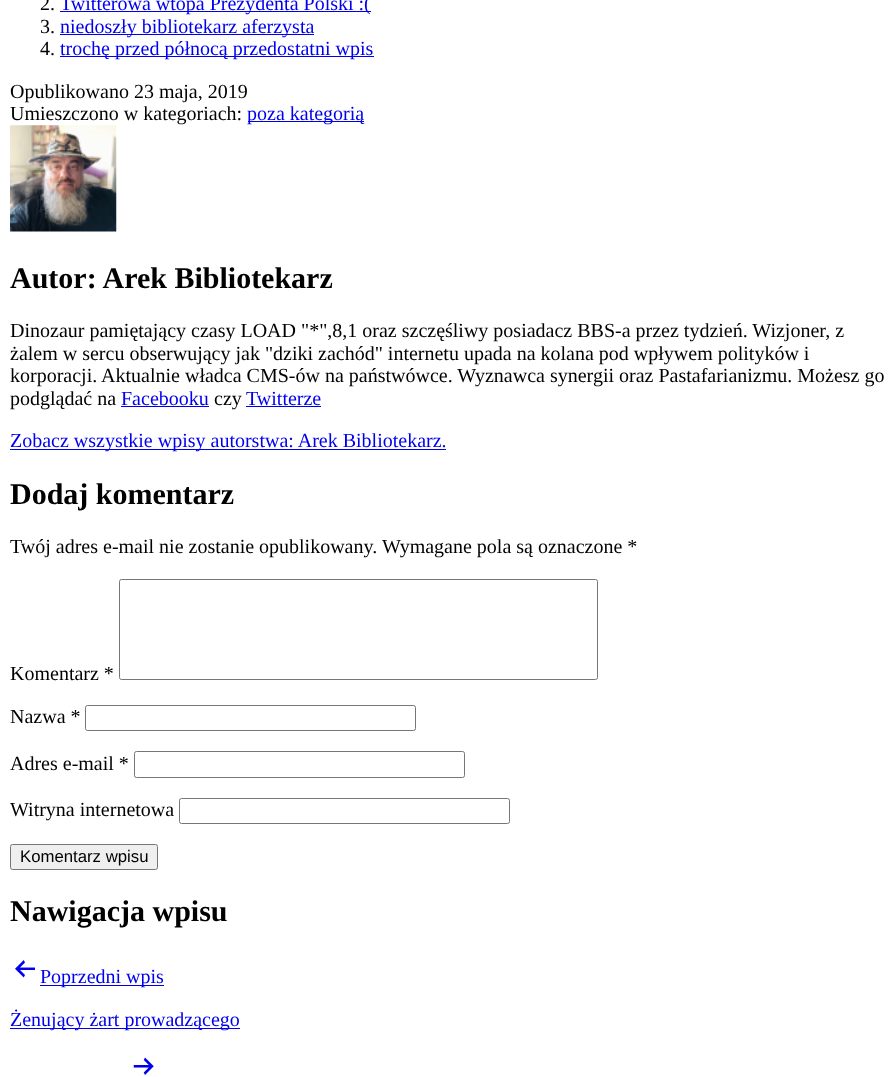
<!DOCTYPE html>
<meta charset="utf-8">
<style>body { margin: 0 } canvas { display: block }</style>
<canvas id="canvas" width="896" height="1077"></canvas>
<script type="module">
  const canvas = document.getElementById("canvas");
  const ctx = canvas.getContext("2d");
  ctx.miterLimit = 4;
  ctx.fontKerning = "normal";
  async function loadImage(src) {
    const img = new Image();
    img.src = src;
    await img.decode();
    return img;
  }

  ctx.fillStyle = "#ffffff";
  ctx.fillRect(0, 0, 896, 1077);
  ctx.font = "20px Liberation Serif";
  ctx.fillStyle = "#000000";
  ctx.fillText("2.", 40, 10);
  ctx.fillStyle = "#0000ee";
  ctx.fillRect(60, 11, 311, 1);
  ctx.fillText("Twitterowa wtopa Prezydenta Polski :(", 60, 10);
  ctx.fillStyle = "#000000";
  ctx.fillText("3.", 40, 33);
  ctx.fillStyle = "#0000ee";
  ctx.fillRect(60, 34, 254, 1);
  ctx.fillText("niedoszły bibliotekarz aferzysta", 60, 33);
  ctx.fillStyle = "#000000";
  ctx.fillText("4.", 40, 55);
  ctx.fillStyle = "#0000ee";
  ctx.fillRect(60, 56, 314, 1);
  ctx.fillText("trochę przed północą przedostatni wpis", 60, 55);
  ctx.fillStyle = "#000000";
  ctx.fillText("Opublikowano 23 maja, 2019", 10, 98);
  ctx.fillText("Umieszczono w kategoriach:", 10, 120);
  ctx.fillStyle = "#0000ee";
  ctx.fillRect(248, 121, 116, 1);
  ctx.fillText("poza kategorią", 247, 120);
  ctx.drawImage(await loadImage("img1.png"), 10, 125, 107, 107);
  ctx.font = "bold 30px Liberation Serif";
  ctx.fillStyle = "#000000";
  ctx.fillText("Autor: Arek Bibliotekarz", 10, 288);
  ctx.font = "20px Liberation Serif";
  ctx.fillText("Dinozaur pamiętający czasy LOAD \"*\",8,1 oraz szczęśliwy posiadacz BBS-a przez tydzień. Wizjoner, z", 10, 337);
  ctx.fillText("żalem w sercu obserwujący jak \"dziki zachód\" internetu upada na kolana pod wpływem polityków i", 10, 360);
  ctx.fillText("korporacji. Aktualnie władca CMS-ów na państwówce. Wyznawca synergii oraz Pastafarianizmu. Możesz go", 10, 382);
  ctx.fillText("podglądać na", 10, 405);
  ctx.fillStyle = "#0000ee";
  ctx.fillText("Facebooku", 121, 405);
  ctx.fillRect(121, 406, 88, 1);
  ctx.fillStyle = "#000000";
  ctx.fillText("czy", 214, 405);
  ctx.fillStyle = "#0000ee";
  ctx.fillText("Twitterze", 246, 405);
  ctx.fillRect(246, 406, 75, 1);
  ctx.fillRect(10, 449, 436, 1);
  ctx.fillText("Zobacz wszystkie wpisy autorstwa: Arek Bibliotekarz.", 10, 447);
  ctx.font = "bold 30px Liberation Serif";
  ctx.fillStyle = "#000000";
  ctx.fillText("Dodaj komentarz", 10, 504);
  ctx.font = "20px Liberation Serif";
  ctx.fillText("Twój adres e-mail nie zostanie opublikowany.", 10, 553);
  ctx.fillText("Wymagane pola są oznaczone *", 382, 553);
  ctx.fillText("Komentarz *", 10, 680);
  ctx.beginPath();
  ctx.roundRect(119.5, 579.5, 478, 100, 2);
  ctx.strokeStyle = "#767676";
  ctx.stroke();
  ctx.fillText("Nazwa *", 10, 723);
  ctx.beginPath();
  ctx.roundRect(85.5, 705.5, 330, 25, 2);
  ctx.stroke();
  ctx.fillText("Adres e-mail *", 10, 770);
  ctx.beginPath();
  ctx.roundRect(134.5, 751.5, 330, 26, 2);
  ctx.stroke();
  ctx.fillText("Witryna internetowa", 10, 816);
  ctx.beginPath();
  ctx.roundRect(179.5, 798.5, 330, 25, 2);
  ctx.stroke();
  ctx.fillStyle = "#efefef";
  ctx.beginPath();
  ctx.roundRect(10.5, 844.5, 147, 25, 2);
  ctx.fill();
  ctx.stroke();
  ctx.font = "16.75px Liberation Sans";
  ctx.fillStyle = "#000000";
  ctx.fillText("Komentarz wpisu", 20, 862);
  ctx.font = "bold 30px Liberation Serif";
  ctx.fillText("Nawigacja wpisu", 10, 921);
  ctx.drawImage(await loadImage("img2.png"), 15, 960, 20, 18);
  ctx.fillStyle = "#0000ee";
  ctx.fillRect(40, 985, 124, 1);
  ctx.font = "20px Liberation Serif";
  ctx.fillText("Poprzedni wpis", 40, 983);
  ctx.fillRect(10, 1028, 230, 1);
  ctx.fillText("Żenujący żart prowadzącego", 10, 1026);
  ctx.drawImage(await loadImage("img3.png"), 133, 1057, 21, 18);
</script>
